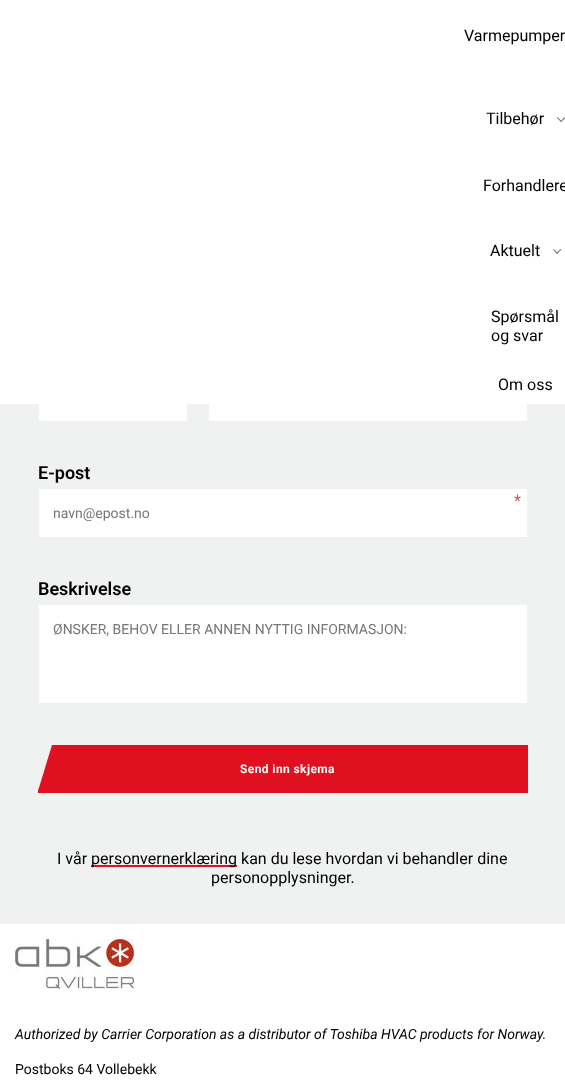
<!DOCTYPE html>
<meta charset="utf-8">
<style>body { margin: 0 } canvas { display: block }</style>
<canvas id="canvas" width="565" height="1086"></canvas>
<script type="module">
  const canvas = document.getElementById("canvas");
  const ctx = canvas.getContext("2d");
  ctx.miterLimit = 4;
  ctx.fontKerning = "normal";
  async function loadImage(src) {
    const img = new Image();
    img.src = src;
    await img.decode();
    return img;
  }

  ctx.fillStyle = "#ffffff";
  ctx.fillRect(0, 0, 565, 1086);
  ctx.fillStyle = "#f0f2f1";
  ctx.fillRect(0, 404, 565, 520);
  ctx.fillStyle = "#ffffff";
  ctx.fillRect(39, 404, 148, 17);
  ctx.strokeStyle = "#f0f2f1";
  ctx.strokeRect(38.5, 372.5, 149, 49);
  ctx.fillRect(209, 404, 318, 17);
  ctx.strokeRect(208.5, 372.5, 319, 49);
  ctx.fillRect(38, 372, 490, 32);
  ctx.font = "16px Roboto";
  ctx.fillStyle = "#000000";
  ctx.fillText("Varmepumper", 464, 41);
  ctx.fillText("Tilbehør", 486, 124);
  ctx.fillStyle = "#737873";
  ctx.beginPath();
  ctx.moveTo(564.5, 117);
  ctx.lineTo(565.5, 118);
  ctx.lineTo(561, 122);
  ctx.lineTo(560.5, 121.5);
  ctx.closePath();
  ctx.fill();
  ctx.beginPath();
  ctx.moveTo(557.5, 117);
  ctx.lineTo(562, 121.5);
  ctx.lineTo(561, 122);
  ctx.lineTo(557, 118);
  ctx.closePath();
  ctx.fill();
  ctx.fillStyle = "#000000";
  ctx.fillText("Forhandlere", 483, 191);
  ctx.fillText("Aktuelt", 490, 256);
  ctx.fillStyle = "#737873";
  ctx.beginPath();
  ctx.moveTo(560.5, 249);
  ctx.lineTo(561.5, 249.5);
  ctx.lineTo(557, 254);
  ctx.lineTo(556.5, 253);
  ctx.closePath();
  ctx.fill();
  ctx.beginPath();
  ctx.moveTo(553.5, 249);
  ctx.lineTo(558, 253);
  ctx.lineTo(557, 254);
  ctx.lineTo(553, 249.5);
  ctx.closePath();
  ctx.fill();
  ctx.fillStyle = "#000000";
  ctx.fillText("Spørsmål", 491, 322);
  ctx.fillText("og svar", 491, 341);
  ctx.fillText("Om oss", 498, 390);
  ctx.font = "600 18px Roboto";
  ctx.fillText("E-post", 38, 479);
  ctx.fillStyle = "#ffffff";
  ctx.fillRect(39, 489, 488, 48);
  ctx.font = "16px Roboto";
  ctx.fillStyle = "#ea4855";
  ctx.fillText("*", 514, 506);
  ctx.font = "14px Roboto";
  ctx.fillStyle = "#737873";
  ctx.fillText("navn@epost.no", 53, 518);
  ctx.font = "600 18px Roboto";
  ctx.fillStyle = "#000000";
  ctx.fillText("Beskrivelse", 38, 595);
  ctx.fillStyle = "#ffffff";
  ctx.fillRect(39, 605, 488, 98);
  ctx.font = "14px Roboto";
  ctx.fillStyle = "#737873";
  ctx.fillText("ØNSKER, BEHOV ELLER ANNEN NYTTIG INFORMASJON:", 53, 634);
  ctx.fillStyle = "#e11021";
  ctx.beginPath();
  ctx.moveTo(52, 745);
  ctx.lineTo(38, 791);
  ctx.lineTo(38, 793);
  ctx.lineTo(528, 793);
  ctx.lineTo(528, 745);
  ctx.closePath();
  ctx.fill();
  ctx.beginPath();
  ctx.moveTo(52, 745);
  ctx.lineTo(52, 746);
  ctx.lineTo(527, 746);
  ctx.lineTo(527, 792);
  ctx.lineTo(39, 792);
  ctx.lineTo(39, 788);
  ctx.lineTo(38, 793);
  ctx.lineTo(528, 793);
  ctx.lineTo(528, 745);
  ctx.closePath();
  ctx.fill();
  ctx.letterSpacing = "0.4px";
  ctx.font = "bold 12px Roboto";
  ctx.fillStyle = "#ffffff";
  ctx.fillText("Send inn skjema", 240, 773);
  ctx.letterSpacing = "0px";
  ctx.font = "16px Roboto";
  ctx.fillStyle = "#000000";
  ctx.fillText("I vår", 57, 864);
  ctx.fillStyle = "#e11021";
  ctx.fillRect(91, 865, 146, 2);
  ctx.fillStyle = "#000000";
  ctx.fillText("personvernerklæring kan du lese hvordan vi behandler dine", 91, 864);
  ctx.fillText("personopplysninger.", 211, 883);
  ctx.drawImage(await loadImage("img1.png"), 15, 939, 119, 50);
  ctx.font = "italic 14px Roboto";
  ctx.fillText("Authorized by Carrier Corporation as a distributor of Toshiba HVAC products for Norway.", 15, 1039);
  ctx.font = "14px Roboto";
  ctx.fillText("Postboks 64 Vollebekk", 15, 1074);
</script>
